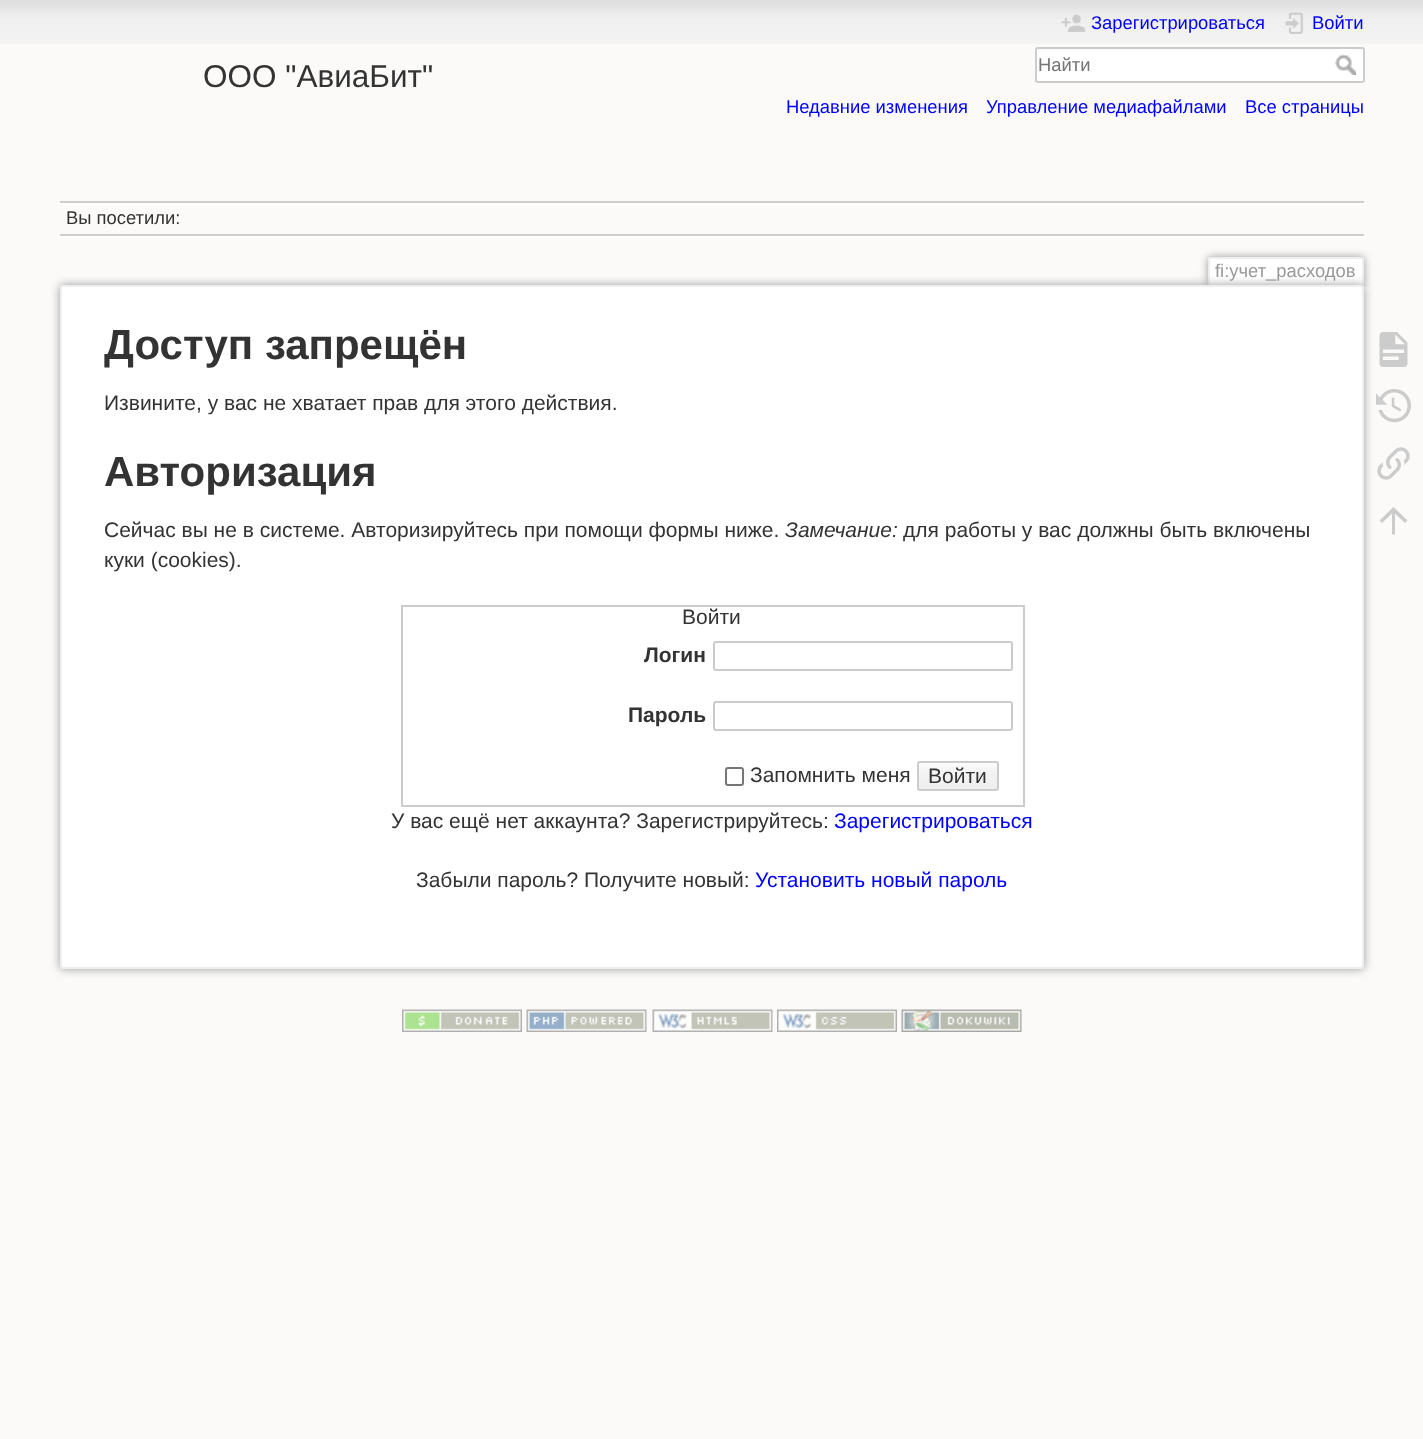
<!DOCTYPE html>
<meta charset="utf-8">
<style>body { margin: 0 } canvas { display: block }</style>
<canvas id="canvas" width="1423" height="1439"></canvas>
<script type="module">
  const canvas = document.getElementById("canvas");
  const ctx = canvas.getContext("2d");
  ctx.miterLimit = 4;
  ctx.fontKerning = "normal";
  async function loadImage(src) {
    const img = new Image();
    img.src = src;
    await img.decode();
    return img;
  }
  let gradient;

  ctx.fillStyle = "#fbfaf9";
  ctx.fillRect(0, 0, 1423, 1439);
  ctx.drawImage(await loadImage("img1.png"), 0, 0, 1423, 44);
  ctx.font = "31.5px Liberation Sans";
  ctx.fillStyle = "#333333";
  ctx.fillText("ООО \"АвиаБит\"", 203, 87);
  ctx.drawImage(await loadImage("img2.png"), 1061, 14, 25, 18);
  ctx.font = "18.4px Liberation Sans";
  ctx.fillStyle = "#0000ff";
  ctx.fillText("Зарегистрироваться", 1091, 29);
  ctx.drawImage(await loadImage("img3.png"), 1285, 12, 18, 22);
  ctx.fillText("Войти", 1312, 29);
  ctx.fillStyle = "#ffffff";
  ctx.beginPath();
  ctx.roundRect(1036, 48, 328, 34, 2);
  ctx.fill();
  ctx.strokeStyle = "#cccccc";
  ctx.lineWidth = 2;
  ctx.stroke();
  ctx.fillStyle = "#757575";
  ctx.fillText("Найти", 1038, 71);
  ctx.drawImage(await loadImage("img4.png"), 1335, 54, 21, 21);
  ctx.fillStyle = "#0000ff";
  ctx.fillText("Недавние изменения", 786, 113);
  ctx.fillText("Управление медиафайлами", 986, 113);
  ctx.fillText("Все страницы", 1245, 113);
  ctx.fillStyle = "#cccccc";
  ctx.fillRect(60, 201, 1304, 2);
  ctx.fillStyle = "#ffffff";
  ctx.fillRect(60, 236, 1304, 2);
  ctx.fillRect(60, 203, 1304, 2);
  ctx.fillStyle = "#cccccc";
  ctx.fillRect(60, 234, 1304, 2);
  ctx.fillStyle = "#333333";
  ctx.fillText("Вы посетили:", 66, 224);
  ctx.save();
  ctx.beginPath();
  ctx.rect(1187, 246, 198, 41);
  ctx.clip();
  ctx.fillStyle = "#999999";
  ctx.filter = "blur(4.5px)";
  ctx.beginPath();
  ctx.roundRect(1208, 257, 156, 30, 3);
  ctx.fill();
  ctx.filter = "none";
  ctx.restore();
  ctx.fillStyle = "#ffffff";
  ctx.fillRect(1210, 259, 152, 27);
  ctx.fillStyle = "#eeeeee";
  ctx.fillRect(1209, 257, 153, 2);
  ctx.fillRect(1362, 258, 2, 29);
  ctx.fillRect(1208, 258, 2, 29);
  ctx.fillStyle = "#999999";
  ctx.fillText("fi:учет_расходов", 1215, 277);
  ctx.filter = "blur(5px)";
  ctx.beginPath();
  ctx.roundRect(60, 285, 1304, 684, 3);
  ctx.fill();
  ctx.filter = "none";
  ctx.fillStyle = "#ffffff";
  ctx.beginPath();
  ctx.roundRect(61, 286, 1302, 682, 2);
  ctx.fill();
  ctx.strokeStyle = "#eeeeee";
  ctx.stroke();
  ctx.font = "bold 42px Liberation Sans";
  ctx.fillStyle = "#333333";
  ctx.fillText("Доступ запрещён", 104, 359);
  ctx.font = "21px Liberation Sans";
  ctx.fillText("Извините, у вас не хватает прав для этого действия.", 104, 410);
  ctx.font = "bold 42px Liberation Sans";
  ctx.fillText("Авторизация", 104, 486);
  ctx.font = "21px Liberation Sans";
  ctx.fillText("Сейчас вы не в системе. Авторизируйтесь при помощи формы ниже.", 104, 537);
  ctx.font = "italic 21px Liberation Sans";
  ctx.fillText("Замечание:", 785, 537);
  ctx.font = "21px Liberation Sans";
  ctx.fillText("для работы у вас должны быть включены", 903, 537);
  ctx.fillText("куки (cookies).", 104, 567);
  ctx.strokeStyle = "#cccccc";
  ctx.strokeRect(402, 606, 622, 200);
  ctx.fillText("Войти", 682, 624);
  ctx.font = "bold 21px Liberation Sans";
  ctx.fillText("Логин", 644, 662);
  ctx.beginPath();
  ctx.roundRect(714, 642, 298, 28, 2);
  ctx.stroke();
  ctx.fillText("Пароль", 628, 722);
  ctx.beginPath();
  ctx.roundRect(714, 702, 298, 28, 2);
  ctx.stroke();
  ctx.beginPath();
  ctx.roundRect(726, 768, 17, 17, 2);
  ctx.strokeStyle = "#767676";
  ctx.stroke();
  ctx.font = "21px Liberation Sans";
  ctx.fillText("Запомнить меня", 750, 782);
  ctx.save();
  ctx.beginPath();
  ctx.roundRect(917, 761, 82, 30, 3);
  ctx.clip();
  gradient = ctx.createLinearGradient(958, 762, 958, 789);
  gradient.addColorStop(0, "#ffffff");
  gradient.addColorStop(0.3, "#f4f4f4");
  gradient.addColorStop(0.99, "#eeeeee");
  gradient.addColorStop(0.99, "#cccccc");
  ctx.fillStyle = gradient;
  ctx.fillRect(917, 762, 82, 27);
  ctx.restore();
  ctx.beginPath();
  ctx.roundRect(918, 762, 80, 28, 2);
  ctx.strokeStyle = "#cccccc";
  ctx.stroke();
  ctx.fillText("Войти", 928, 783);
  ctx.fillText("У вас ещё нет аккаунта? Зарегистрируйтесь:", 391, 828);
  ctx.fillStyle = "#0000ff";
  ctx.fillText("Зарегистрироваться", 834, 828);
  ctx.fillStyle = "#333333";
  ctx.fillText("Забыли пароль? Получите новый:", 416, 887);
  ctx.fillStyle = "#0000ff";
  ctx.fillText("Установить новый пароль", 755, 887);
  ctx.drawImage(await loadImage("img5.png"), 1379, 332, 29, 35);
  ctx.drawImage(await loadImage("img6.png"), 1376, 389, 35, 34);
  ctx.drawImage(await loadImage("img7.png"), 1377, 447, 33, 33);
  ctx.fillStyle = "#cccccc";
  ctx.beginPath();
  ctx.moveTo(1395, 534.5);
  ctx.lineTo(1392, 534.5);
  ctx.lineTo(1392, 513.5);
  ctx.lineTo(1382, 523);
  ctx.lineTo(1379.5, 520.5);
  ctx.lineTo(1393.5, 507);
  ctx.lineTo(1407.5, 520.5);
  ctx.lineTo(1405, 523);
  ctx.lineTo(1395, 513.5);
  ctx.closePath();
  ctx.fill();
  ctx.drawImage(await loadImage("img8.png"), 402, 1009, 120, 23);
  ctx.drawImage(await loadImage("img9.png"), 526, 1009, 121, 23);
  ctx.drawImage(await loadImage("img10.png"), 652, 1009, 121, 23);
  ctx.drawImage(await loadImage("img11.png"), 777, 1009, 120, 23);
  ctx.drawImage(await loadImage("img12.png"), 901, 1009, 121, 23);
</script>
